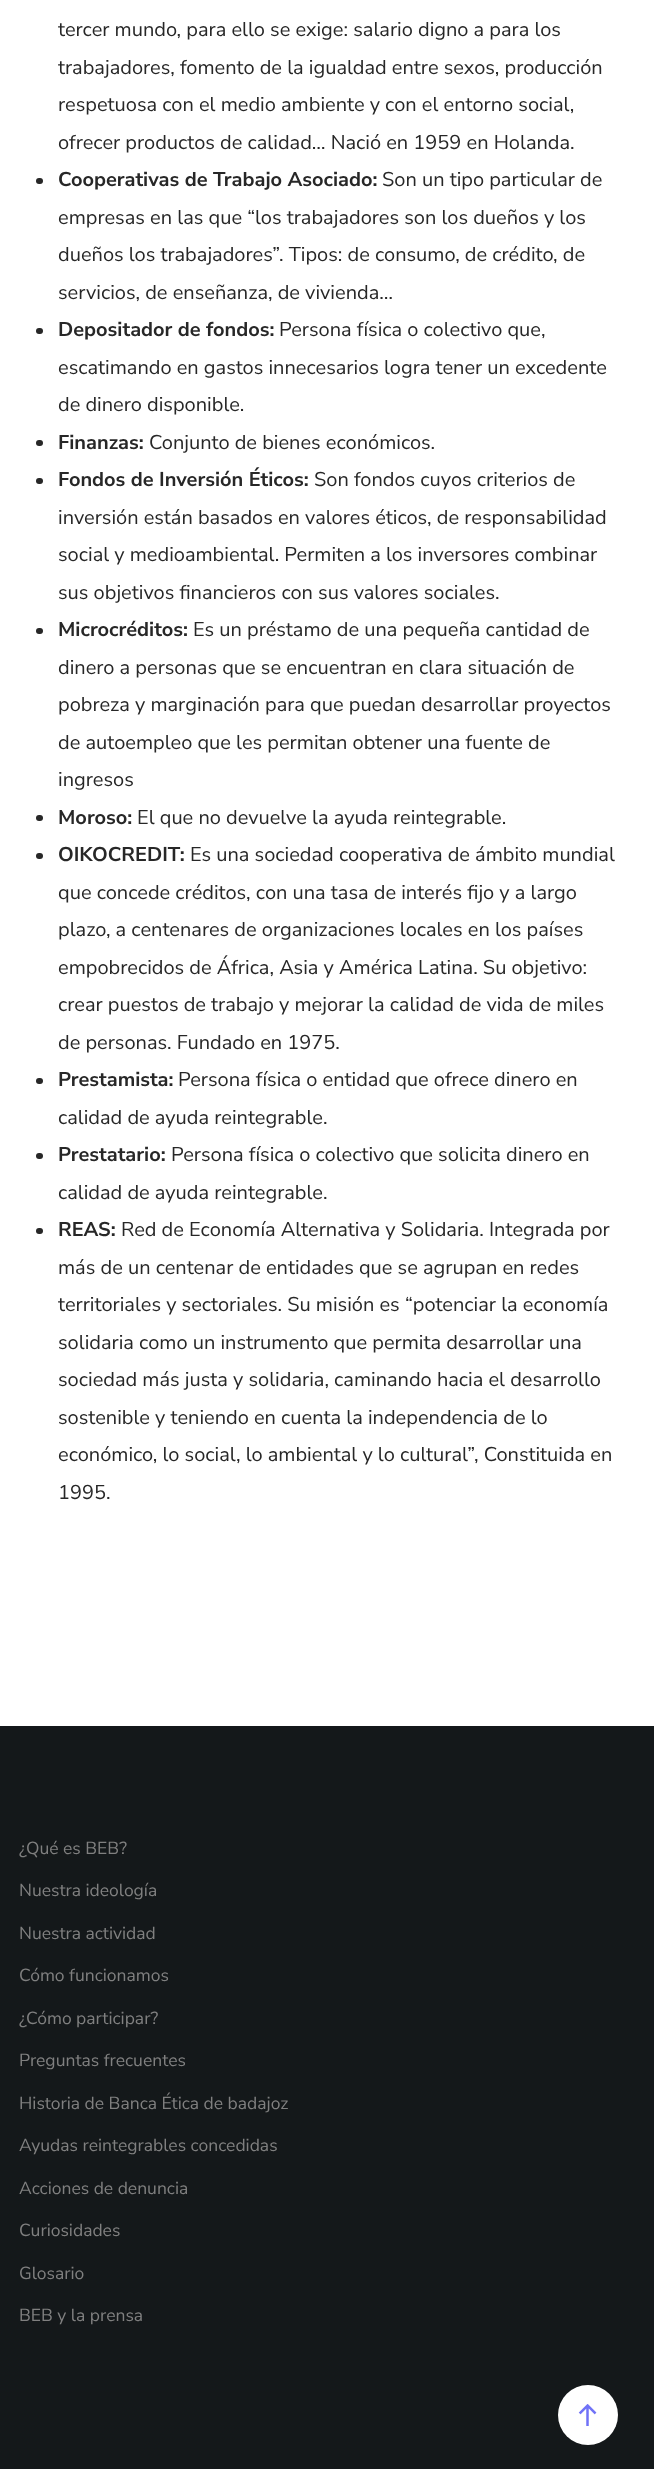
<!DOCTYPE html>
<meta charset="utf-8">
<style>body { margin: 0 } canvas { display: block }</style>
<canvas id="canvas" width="654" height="2469"></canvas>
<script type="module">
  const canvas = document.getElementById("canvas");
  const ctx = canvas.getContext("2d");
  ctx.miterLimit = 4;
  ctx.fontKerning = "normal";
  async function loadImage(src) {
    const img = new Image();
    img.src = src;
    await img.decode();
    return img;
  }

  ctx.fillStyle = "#14181a";
  ctx.fillRect(0, 0, 654, 2469);
  ctx.fillStyle = "#ffffff";
  ctx.fillRect(0, 0, 654, 1726);
  ctx.font = "20px Nunito Sans";
  ctx.fillStyle = "#272727";
  ctx.fillText("tercer mundo, para ello se exige: salario digno a para los", 58, 36);
  ctx.fillText("trabajadores, fomento de la igualdad entre sexos, producción", 58, 74);
  ctx.fillText("respetuosa con el medio ambiente y con el entorno social,", 58, 111);
  ctx.fillText("ofrecer productos de calidad… Nació en 1959 en Holanda.", 58, 149);
  ctx.beginPath();
  ctx.roundRect(36, 178, 7, 6, 3);
  ctx.fill();
  ctx.font = "bold 20px Nunito Sans";
  ctx.fillText("Cooperativas de Trabajo Asociado:", 58, 186);
  ctx.font = "20px Nunito Sans";
  ctx.fillText("Son un tipo particular de", 382, 186);
  ctx.fillText("empresas en las que “los trabajadores son los dueños y los", 58, 224);
  ctx.fillText("dueños los trabajadores”. Tipos: de consumo, de crédito, de", 58, 261);
  ctx.fillText("servicios, de enseñanza, de vivienda…", 58, 299);
  ctx.beginPath();
  ctx.roundRect(36, 328, 7, 6, 3);
  ctx.fill();
  ctx.font = "bold 20px Nunito Sans";
  ctx.fillText("Depositador de fondos:", 58, 336);
  ctx.font = "20px Nunito Sans";
  ctx.fillText("Persona física o colectivo que,", 279, 336);
  ctx.fillText("escatimando en gastos innecesarios logra tener un excedente", 58, 374);
  ctx.fillText("de dinero disponible.", 58, 411);
  ctx.beginPath();
  ctx.roundRect(36, 440, 7, 6, 3);
  ctx.fill();
  ctx.font = "bold 20px Nunito Sans";
  ctx.fillText("Finanzas:", 58, 449);
  ctx.font = "20px Nunito Sans";
  ctx.fillText("Conjunto de bienes económicos.", 149, 449);
  ctx.beginPath();
  ctx.roundRect(36, 478, 7, 6, 3);
  ctx.fill();
  ctx.font = "bold 20px Nunito Sans";
  ctx.fillText("Fondos de Inversión Éticos:", 58, 486);
  ctx.font = "20px Nunito Sans";
  ctx.fillText("Son fondos cuyos criterios de", 314, 486);
  ctx.fillText("inversión están basados en valores éticos, de responsabilidad", 58, 524);
  ctx.fillText("social y medioambiental. Permiten a los inversores combinar", 58, 561);
  ctx.fillText("sus objetivos financieros con sus valores sociales.", 58, 599);
  ctx.beginPath();
  ctx.roundRect(36, 628, 7, 6, 3);
  ctx.fill();
  ctx.font = "bold 20px Nunito Sans";
  ctx.fillText("Microcréditos:", 58, 636);
  ctx.font = "20px Nunito Sans";
  ctx.fillText("Es un préstamo de una pequeña cantidad de", 193, 636);
  ctx.fillText("dinero a personas que se encuentran en clara situación de", 58, 674);
  ctx.fillText("pobreza y marginación para que puedan desarrollar proyectos", 58, 711);
  ctx.fillText("de autoempleo que les permitan obtener una fuente de", 58, 749);
  ctx.fillText("ingresos", 58, 786);
  ctx.beginPath();
  ctx.roundRect(36, 815, 7, 6, 3);
  ctx.fill();
  ctx.font = "bold 20px Nunito Sans";
  ctx.fillText("Moroso:", 58, 824);
  ctx.font = "20px Nunito Sans";
  ctx.fillText("El que no devuelve la ayuda reintegrable.", 137, 824);
  ctx.beginPath();
  ctx.roundRect(36, 853, 7, 6, 3);
  ctx.fill();
  ctx.font = "bold 20px Nunito Sans";
  ctx.fillText("OIKOCREDIT:", 58, 861);
  ctx.font = "20px Nunito Sans";
  ctx.fillText("Es una sociedad cooperativa de ámbito mundial", 190, 861);
  ctx.fillText("que concede créditos, con una tasa de interés fijo y a largo", 58, 899);
  ctx.fillText("plazo, a centenares de organizaciones locales en los países", 58, 936);
  ctx.fillText("empobrecidos de África, Asia y América Latina. Su objetivo:", 58, 974);
  ctx.fillText("crear puestos de trabajo y mejorar la calidad de vida de miles", 58, 1011);
  ctx.fillText("de personas. Fundado en 1975.", 58, 1049);
  ctx.beginPath();
  ctx.roundRect(36, 1078, 7, 6, 3);
  ctx.fill();
  ctx.font = "bold 20px Nunito Sans";
  ctx.fillText("Prestamista:", 58, 1086);
  ctx.font = "20px Nunito Sans";
  ctx.fillText("Persona física o entidad que ofrece dinero en", 178, 1086);
  ctx.fillText("calidad de ayuda reintegrable.", 58, 1124);
  ctx.beginPath();
  ctx.roundRect(36, 1153, 7, 6, 3);
  ctx.fill();
  ctx.font = "bold 20px Nunito Sans";
  ctx.fillText("Prestatario:", 58, 1161);
  ctx.font = "20px Nunito Sans";
  ctx.fillText("Persona física o colectivo que solicita dinero en", 171, 1161);
  ctx.fillText("calidad de ayuda reintegrable.", 58, 1199);
  ctx.beginPath();
  ctx.roundRect(36, 1228, 7, 6, 3);
  ctx.fill();
  ctx.font = "bold 20px Nunito Sans";
  ctx.fillText("REAS:", 58, 1236);
  ctx.font = "20px Nunito Sans";
  ctx.fillText("Red de Economía Alternativa y Solidaria. Integrada por", 121, 1236);
  ctx.fillText("más de un centenar de entidades que se agrupan en redes", 58, 1274);
  ctx.fillText("territoriales y sectoriales. Su misión es “potenciar la economía", 58, 1311);
  ctx.fillText("solidaria como un instrumento que permita desarrollar una", 58, 1349);
  ctx.fillText("sociedad más justa y solidaria, caminando hacia el desarrollo", 58, 1386);
  ctx.fillText("sostenible y teniendo en cuenta la independencia de lo", 58, 1424);
  ctx.fillText("económico, lo social, lo ambiental y lo cultural”, Constituida en", 58, 1461);
  ctx.fillText("1995.", 58, 1499);
  ctx.font = "17.5px Nunito Sans";
  ctx.fillStyle = "#808080";
  ctx.fillText("¿Qué es BEB?", 19, 1854);
  ctx.fillText("Nuestra ideología", 19, 1896);
  ctx.fillText("Nuestra actividad", 19, 1939);
  ctx.fillText("Cómo funcionamos", 19, 1981);
  ctx.fillText("¿Cómo participar?", 19, 2024);
  ctx.fillText("Preguntas frecuentes", 19, 2066);
  ctx.fillText("Historia de Banca Ética de badajoz", 19, 2109);
  ctx.fillText("Ayudas reintegrables concedidas", 19, 2151);
  ctx.fillText("Acciones de denuncia", 19, 2194);
  ctx.fillText("Curiosidades", 19, 2236);
  ctx.fillText("Glosario", 19, 2279);
  ctx.fillText("BEB y la prensa", 19, 2321);
  ctx.fillStyle = "#ffffff";
  ctx.beginPath();
  ctx.arc(588, 2415, 30, 0, Math.PI * 2);
  ctx.fill();
  ctx.drawImage(await loadImage("img1.png"), 578, 2404, 19, 22);
</script>
